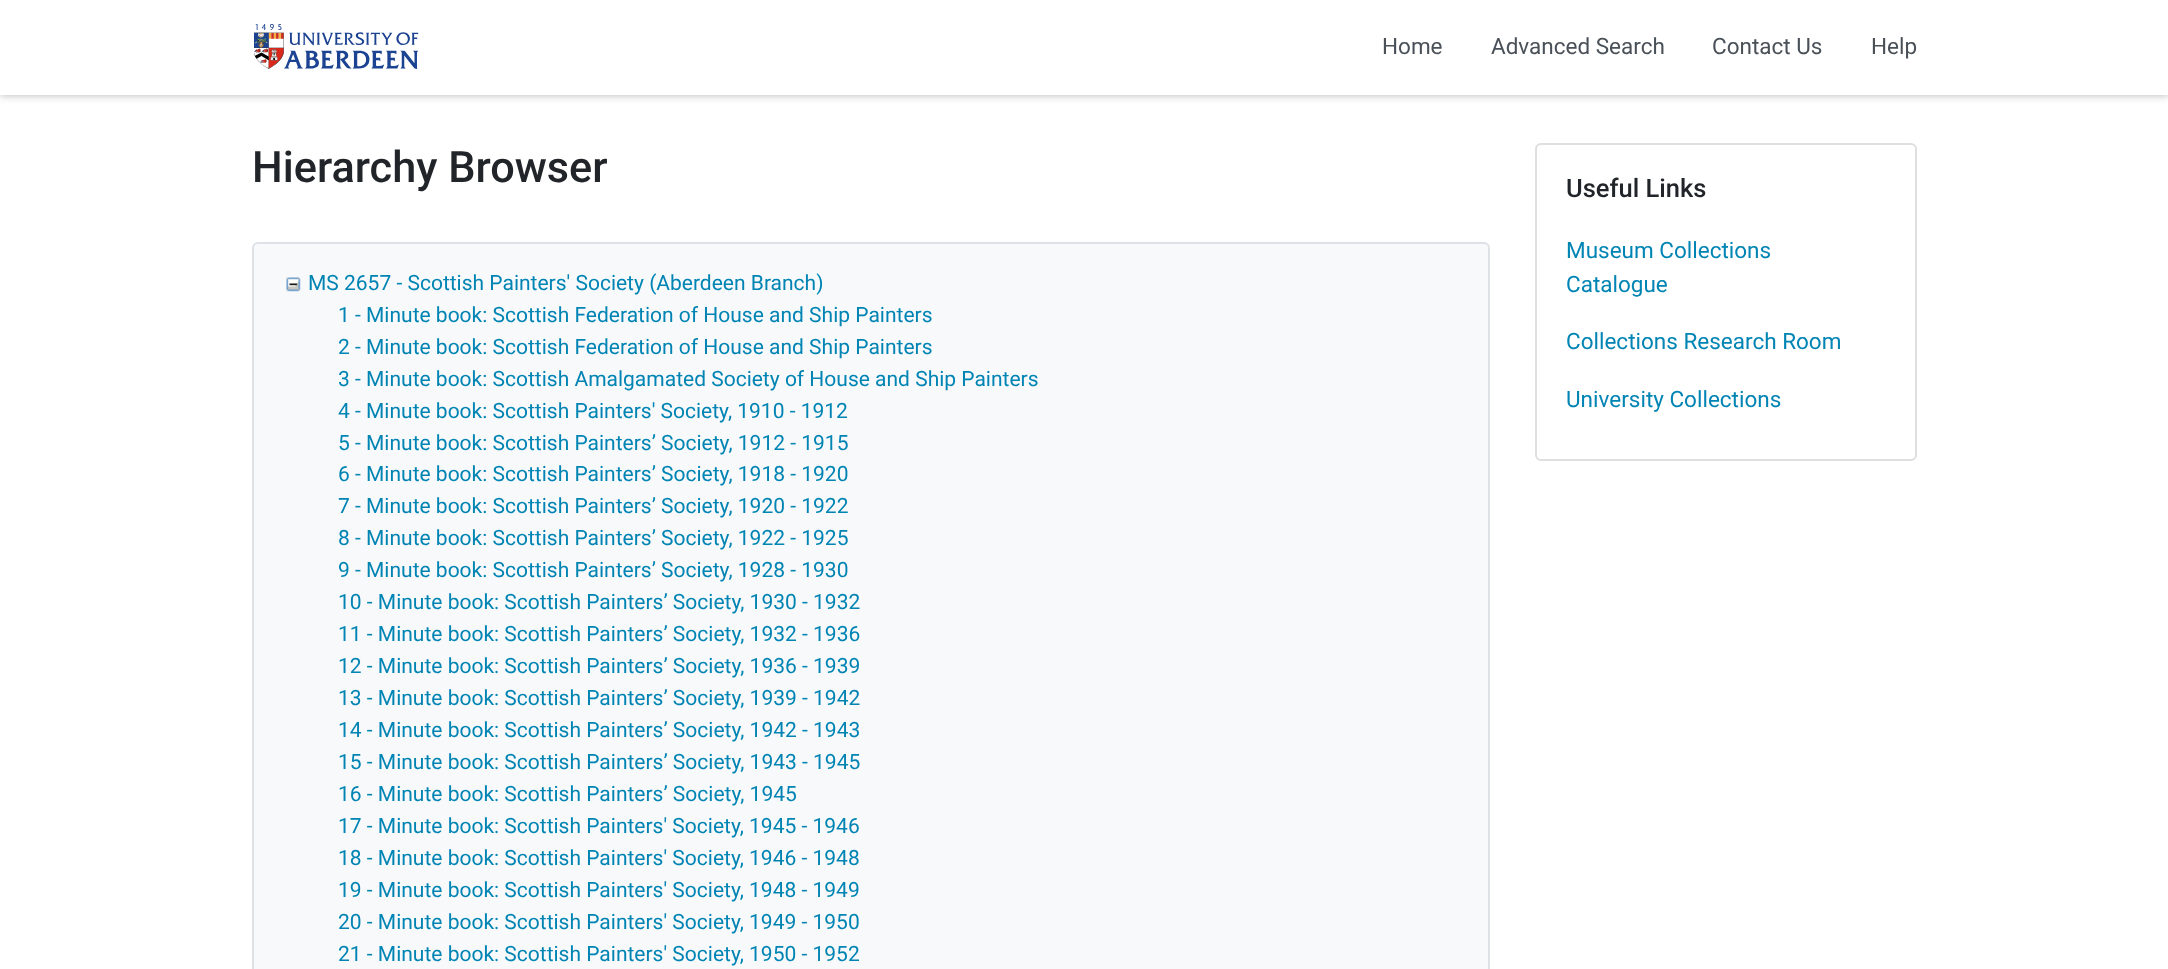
<!DOCTYPE html>
<meta charset="utf-8">
<style>body { margin: 0 } canvas { display: block }</style>
<canvas id="canvas" width="2168" height="969"></canvas>
<script type="module">
  const canvas = document.getElementById("canvas");
  const ctx = canvas.getContext("2d");
  ctx.miterLimit = 4;
  ctx.fontKerning = "normal";
  async function loadImage(src) {
    const img = new Image();
    img.src = src;
    await img.decode();
    return img;
  }

  ctx.fillStyle = "#ffffff";
  ctx.fillRect(0, 0, 2168, 969);
  ctx.fillStyle = "rgba(0, 0, 0, 0.3)";
  ctx.filter = "blur(4.5px)";
  ctx.beginPath();
  ctx.rect(0, 0, 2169, 95);
  ctx.fill();
  ctx.filter = "none";
  ctx.fillStyle = "#ffffff";
  ctx.fillRect(0, 0, 2168, 95);
  ctx.drawImage(await loadImage("img1.png"), 254, 24, 165, 45);
  ctx.font = "22.5px Roboto";
  ctx.fillStyle = "#495057";
  ctx.fillText("Home", 1382, 54);
  ctx.fillText("Advanced Search", 1491, 54);
  ctx.fillText("Contact Us", 1712, 54);
  ctx.fillText("Help", 1871, 54);
  ctx.font = "500 43.25px Roboto";
  ctx.fillStyle = "#212529";
  ctx.fillText("Hierarchy Browser", 252, 182);
  ctx.fillStyle = "#f8f9fa";
  ctx.beginPath();
  ctx.roundRect(253, 243, 1236, 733, 5);
  ctx.fill();
  ctx.strokeStyle = "#dee2e6";
  ctx.lineWidth = 2;
  ctx.stroke();
  ctx.drawImage(await loadImage("img2.png"), 286, 277, 15, 15);
  ctx.font = "21px Roboto";
  ctx.fillStyle = "#0084b4";
  ctx.fillText("MS 2657 - Scottish Painters' Society (Aberdeen Branch)", 308, 290);
  ctx.fillText("1 - Minute book: Scottish Federation of House and Ship Painters", 338, 322);
  ctx.fillText("2 - Minute book: Scottish Federation of House and Ship Painters", 338, 354);
  ctx.fillText("3 - Minute book: Scottish Amalgamated Society of House and Ship Painters", 338, 386);
  ctx.fillText("4 - Minute book: Scottish Painters' Society, 1910 - 1912", 338, 418);
  ctx.fillText("5 - Minute book: Scottish Painters’ Society, 1912 - 1915", 338, 450);
  ctx.fillText("6 - Minute book: Scottish Painters’ Society, 1918 - 1920", 338, 481);
  ctx.fillText("7 - Minute book: Scottish Painters’ Society, 1920 - 1922", 338, 513);
  ctx.fillText("8 - Minute book: Scottish Painters’ Society, 1922 - 1925", 338, 545);
  ctx.fillText("9 - Minute book: Scottish Painters’ Society, 1928 - 1930", 338, 577);
  ctx.fillText("10 - Minute book: Scottish Painters’ Society, 1930 - 1932", 338, 609);
  ctx.fillText("11 - Minute book: Scottish Painters’ Society, 1932 - 1936", 338, 641);
  ctx.fillText("12 - Minute book: Scottish Painters’ Society, 1936 - 1939", 338, 673);
  ctx.fillText("13 - Minute book: Scottish Painters’ Society, 1939 - 1942", 338, 705);
  ctx.fillText("14 - Minute book: Scottish Painters’ Society, 1942 - 1943", 338, 737);
  ctx.fillText("15 - Minute book: Scottish Painters’ Society, 1943 - 1945", 338, 769);
  ctx.fillText("16 - Minute book: Scottish Painters’ Society, 1945", 338, 801);
  ctx.fillText("17 - Minute book: Scottish Painters' Society, 1945 - 1946", 338, 833);
  ctx.fillText("18 - Minute book: Scottish Painters' Society, 1946 - 1948", 338, 865);
  ctx.fillText("19 - Minute book: Scottish Painters' Society, 1948 - 1949", 338, 897);
  ctx.fillText("20 - Minute book: Scottish Painters' Society, 1949 - 1950", 338, 929);
  ctx.fillText("21 - Minute book: Scottish Painters' Society, 1950 - 1952", 338, 961);
  ctx.beginPath();
  ctx.roundRect(1536, 144, 380, 316, 5);
  ctx.strokeStyle = "#dfdfdf";
  ctx.stroke();
  ctx.font = "500 25.5px Roboto";
  ctx.fillStyle = "#212529";
  ctx.fillText("Useful Links", 1566, 197);
  ctx.font = "22.5px Roboto";
  ctx.fillStyle = "#0084b4";
  ctx.fillText("Museum Collections", 1566, 258);
  ctx.fillText("Catalogue", 1566, 292);
  ctx.fillText("Collections Research Room", 1566, 349);
  ctx.fillText("University Collections", 1566, 407);
</script>
